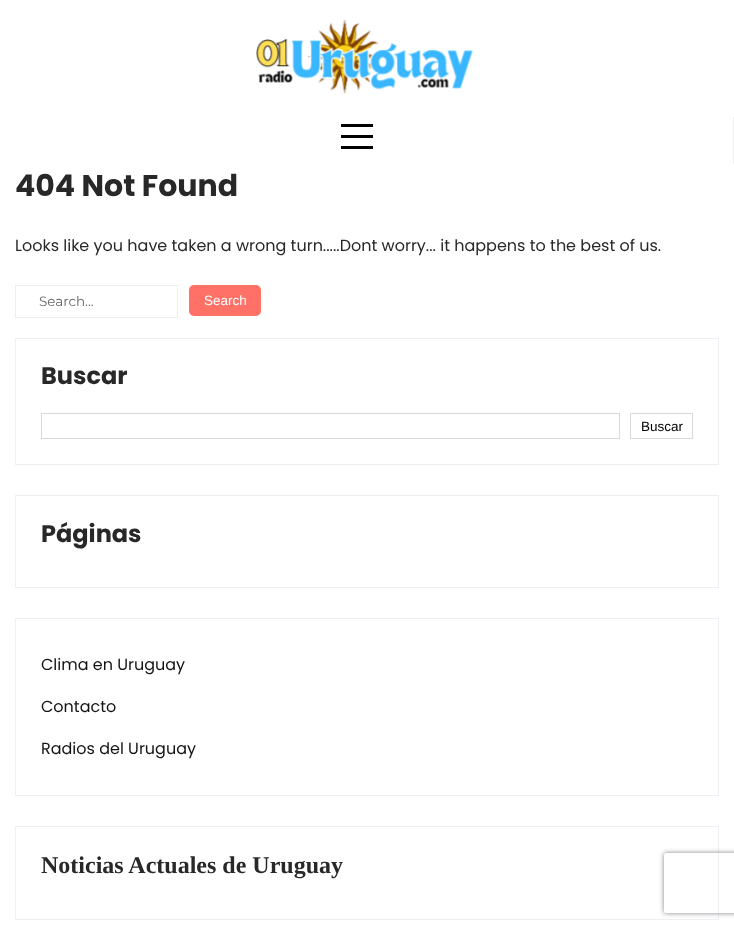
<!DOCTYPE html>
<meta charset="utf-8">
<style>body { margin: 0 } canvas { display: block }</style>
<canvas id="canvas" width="734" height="927"></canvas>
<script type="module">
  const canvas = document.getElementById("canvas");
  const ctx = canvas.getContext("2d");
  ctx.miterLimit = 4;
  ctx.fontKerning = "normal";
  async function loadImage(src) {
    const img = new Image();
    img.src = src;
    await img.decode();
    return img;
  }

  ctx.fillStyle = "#ffffff";
  ctx.fillRect(0, 0, 734, 927);
  ctx.drawImage(await loadImage("img1.png"), 256, 20, 218, 74);
  ctx.fillStyle = "#efefef";
  ctx.fillRect(733, 117, 1, 47);
  ctx.fillStyle = "#000000";
  ctx.fillRect(341, 124, 32, 3);
  ctx.fillRect(341, 135, 32, 3);
  ctx.fillRect(341, 146, 32, 3);
  ctx.font = "bold 30px Poppins";
  ctx.fillStyle = "#282828";
  ctx.fillText("404 Not Found", 15, 196);
  ctx.font = "16px Poppins";
  ctx.fillText("Looks like you have taken a wrong turn.....Dont worry... it happens to the best of us.", 15, 251);
  ctx.strokeStyle = "#eeeeee";
  ctx.strokeRect(15.5, 285.5, 162, 32);
  ctx.font = "13.5px Montserrat";
  ctx.fillStyle = "#686868";
  ctx.fillText("Search...", 39, 306);
  ctx.fillStyle = "#ff7167";
  ctx.beginPath();
  ctx.roundRect(189, 285, 72, 31, 5);
  ctx.fill();
  ctx.font = "13.5px Liberation Sans";
  ctx.fillStyle = "#ffffff";
  ctx.fillText("Search", 204, 305);
  ctx.strokeStyle = "#eeeff5";
  ctx.strokeRect(15.5, 338.5, 703, 126);
  ctx.font = "bold 24px Poppins";
  ctx.fillStyle = "#282828";
  ctx.fillText("Buscar", 41, 384);
  ctx.strokeStyle = "#d9d9d9";
  ctx.strokeRect(41.5, 413.5, 578, 25);
  ctx.strokeRect(630.5, 413.5, 62, 25);
  ctx.font = "13.5px Liberation Sans";
  ctx.fillStyle = "#000000";
  ctx.fillText("Buscar", 641, 431);
  ctx.strokeStyle = "#eeeff5";
  ctx.strokeRect(15.5, 495.5, 703, 92);
  ctx.font = "bold 24px Poppins";
  ctx.fillStyle = "#282828";
  ctx.fillText("Páginas", 41, 542);
  ctx.strokeRect(15.5, 618.5, 703, 177);
  ctx.font = "16px Poppins";
  ctx.fillStyle = "#141414";
  ctx.fillText("Clima en Uruguay", 41, 670);
  ctx.fillText("Contacto", 41, 712);
  ctx.fillText("Radios del Uruguay", 41, 754);
  ctx.strokeRect(15.5, 826.5, 703, 93);
  ctx.font = "bold 24px Liberation Serif";
  ctx.fillStyle = "#282828";
  ctx.fillText("Noticias Actuales de Uruguay", 41, 873);
  ctx.save();
  ctx.beginPath();
  ctx.moveTo(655, 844);
  ctx.lineTo(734, 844);
  ctx.lineTo(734, 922);
  ctx.lineTo(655, 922);
  ctx.closePath();
  ctx.moveTo(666, 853);
  ctx.lineTo(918, 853);
  ctx.bezierCurveTo(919, 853, 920, 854, 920, 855);
  ctx.lineTo(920, 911);
  ctx.bezierCurveTo(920, 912, 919, 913, 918, 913);
  ctx.lineTo(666, 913);
  ctx.bezierCurveTo(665, 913, 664, 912, 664, 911);
  ctx.lineTo(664, 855);
  ctx.bezierCurveTo(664, 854, 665, 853, 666, 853);
  ctx.closePath();
  ctx.clip("evenodd");
  ctx.fillStyle = "#808080";
  ctx.filter = "blur(2.5px)";
  ctx.beginPath();
  ctx.roundRect(664, 853, 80, 60, 2);
  ctx.fill();
  ctx.filter = "none";
  ctx.restore();
</script>
